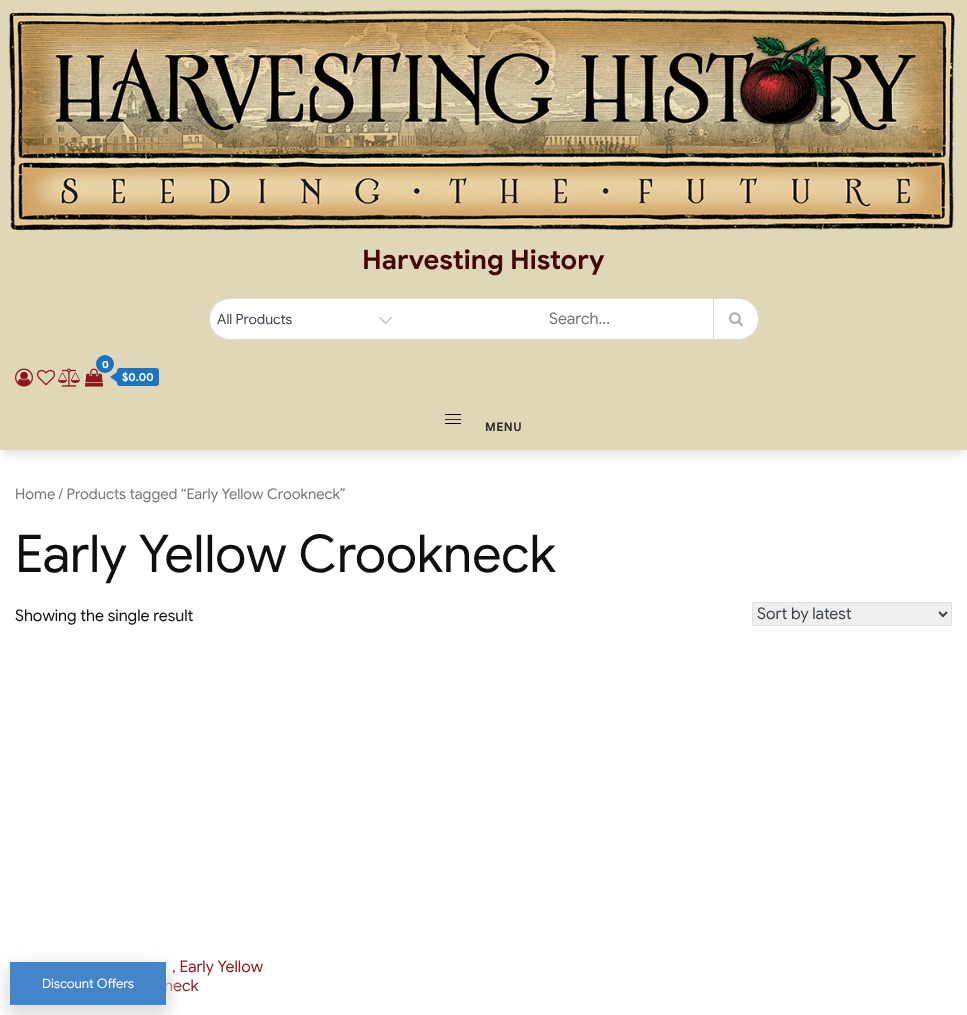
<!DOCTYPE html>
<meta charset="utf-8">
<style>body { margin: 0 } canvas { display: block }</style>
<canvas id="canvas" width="967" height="1015"></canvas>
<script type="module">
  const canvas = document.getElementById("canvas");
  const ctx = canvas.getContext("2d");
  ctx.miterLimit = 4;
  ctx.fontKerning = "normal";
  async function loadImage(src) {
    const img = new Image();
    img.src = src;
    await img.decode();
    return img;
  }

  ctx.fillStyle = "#ffffff";
  ctx.fillRect(0, 0, 967, 1015);
  ctx.fillStyle = "rgba(130, 130, 130, 0.18)";
  ctx.filter = "blur(4px)";
  ctx.beginPath();
  ctx.rect(3, 12, 961, 444);
  ctx.fill();
  ctx.filter = "none";
  ctx.fillStyle = "#e0d7b9";
  ctx.fillRect(0, 0, 967, 450);
  ctx.drawImage(await loadImage("img1.png"), 9, 9, 946, 222);
  ctx.font = "bold 27px Google Sans";
  ctx.fillStyle = "#420808";
  ctx.fillText("Harvesting History", 362, 269);
  ctx.fillStyle = "#ffffff";
  ctx.beginPath();
  ctx.roundRect(209.5, 298.5, 549, 41, 20.5);
  ctx.fill();
  ctx.strokeStyle = "#d9d9d9";
  ctx.stroke();
  ctx.drawImage(await loadImage("img2.png"), 379, 317, 13, 7);
  ctx.font = "14px Google Sans";
  ctx.fillStyle = "#3f444d";
  ctx.fillText("All Products", 217, 324);
  ctx.save();
  ctx.beginPath();
  ctx.roundRect(210, 299, 548, 40, 20);
  ctx.clip();
  ctx.fillStyle = "#ffffff";
  ctx.fillRect(401, 299, 356, 40);
  ctx.restore();
  ctx.font = "16px Google Sans";
  ctx.fillStyle = "#767676";
  ctx.fillText("Search...", 549, 324);
  ctx.fillStyle = "#d9d9d9";
  ctx.fillRect(713, 299, 1, 40);
  ctx.drawImage(await loadImage("img3.png"), 729, 312, 14, 15);
  ctx.drawImage(await loadImage("img4.png"), 15, 368, 18, 19);
  ctx.drawImage(await loadImage("img5.png"), 37, 369, 18, 17);
  ctx.drawImage(await loadImage("img6.png"), 58, 368, 22, 19);
  ctx.drawImage(await loadImage("img7.png"), 85, 368, 18, 19);
  ctx.fillStyle = "#1c73bf";
  ctx.beginPath();
  ctx.arc(105, 364, 9, 0, Math.PI * 2);
  ctx.fill();
  ctx.font = "bold 10px Montserrat";
  ctx.fillStyle = "#ffffff";
  ctx.fillText("0", 102, 368);
  ctx.fillStyle = "#1c73bf";
  ctx.beginPath();
  ctx.roundRect(117, 368, 42, 18, 3);
  ctx.fill();
  ctx.beginPath();
  ctx.moveTo(117, 372);
  ctx.lineTo(117, 382);
  ctx.lineTo(110, 377);
  ctx.closePath();
  ctx.fill();
  ctx.font = "bold 11px Google Sans";
  ctx.fillStyle = "#ffffff";
  ctx.fillText("$0.00", 122, 381);
  ctx.fillStyle = "#000000";
  ctx.fillRect(445, 414, 16, 1);
  ctx.fillStyle = "#2d2b25";
  ctx.fillRect(445, 419, 16, 1);
  ctx.fillStyle = "#000000";
  ctx.fillRect(445, 423, 16, 1);
  ctx.letterSpacing = "0.5px";
  ctx.font = "bold 12px Google Sans";
  ctx.fillStyle = "#2d2b25";
  ctx.fillText("MENU", 485, 431);
  ctx.letterSpacing = "0px";
  ctx.font = "14.75px Google Sans";
  ctx.fillStyle = "#767676";
  ctx.fillText("Home / Products tagged “Early Yellow Crookneck”", 15, 499);
  ctx.font = "52px Google Sans";
  ctx.fillStyle = "#0f0f0f";
  ctx.fillText("Early Yellow Crookneck", 15, 572);
  ctx.font = "16px Google Sans";
  ctx.fillText("Showing the single result", 15, 621);
  ctx.fillStyle = "#efefef";
  ctx.beginPath();
  ctx.rect(752.5, 602.5, 199, 23);
  ctx.fill();
  ctx.strokeStyle = "#e0e0e0";
  ctx.stroke();
  ctx.beginPath();
  ctx.moveTo(939, 612);
  ctx.lineTo(943, 616);
  ctx.lineTo(947, 612);
  ctx.strokeStyle = "#3f444d";
  ctx.lineWidth = 2;
  ctx.stroke();
  ctx.fillStyle = "#3f444d";
  ctx.fillText("Sort by latest", 757, 619);
  ctx.fillStyle = "#8c1919";
  ctx.fillText(", Early Yellow", 172, 972);
  ctx.fillText("neck", 164, 991);
  ctx.fillStyle = "#dedede";
  ctx.filter = "blur(10px)";
  ctx.beginPath();
  ctx.rect(10, 968, 156, 43);
  ctx.fill();
  ctx.filter = "none";
  ctx.filter = "blur(8px)";
  ctx.beginPath();
  ctx.rect(10, 970, 156, 43);
  ctx.fill();
  ctx.filter = "none";
  ctx.fillStyle = "#4485ca";
  ctx.fillRect(10, 962, 156, 43);
  ctx.font = "13px Google Sans";
  ctx.fillStyle = "#ffffff";
  ctx.fillText("Discount Offers", 42, 988);
</script>
